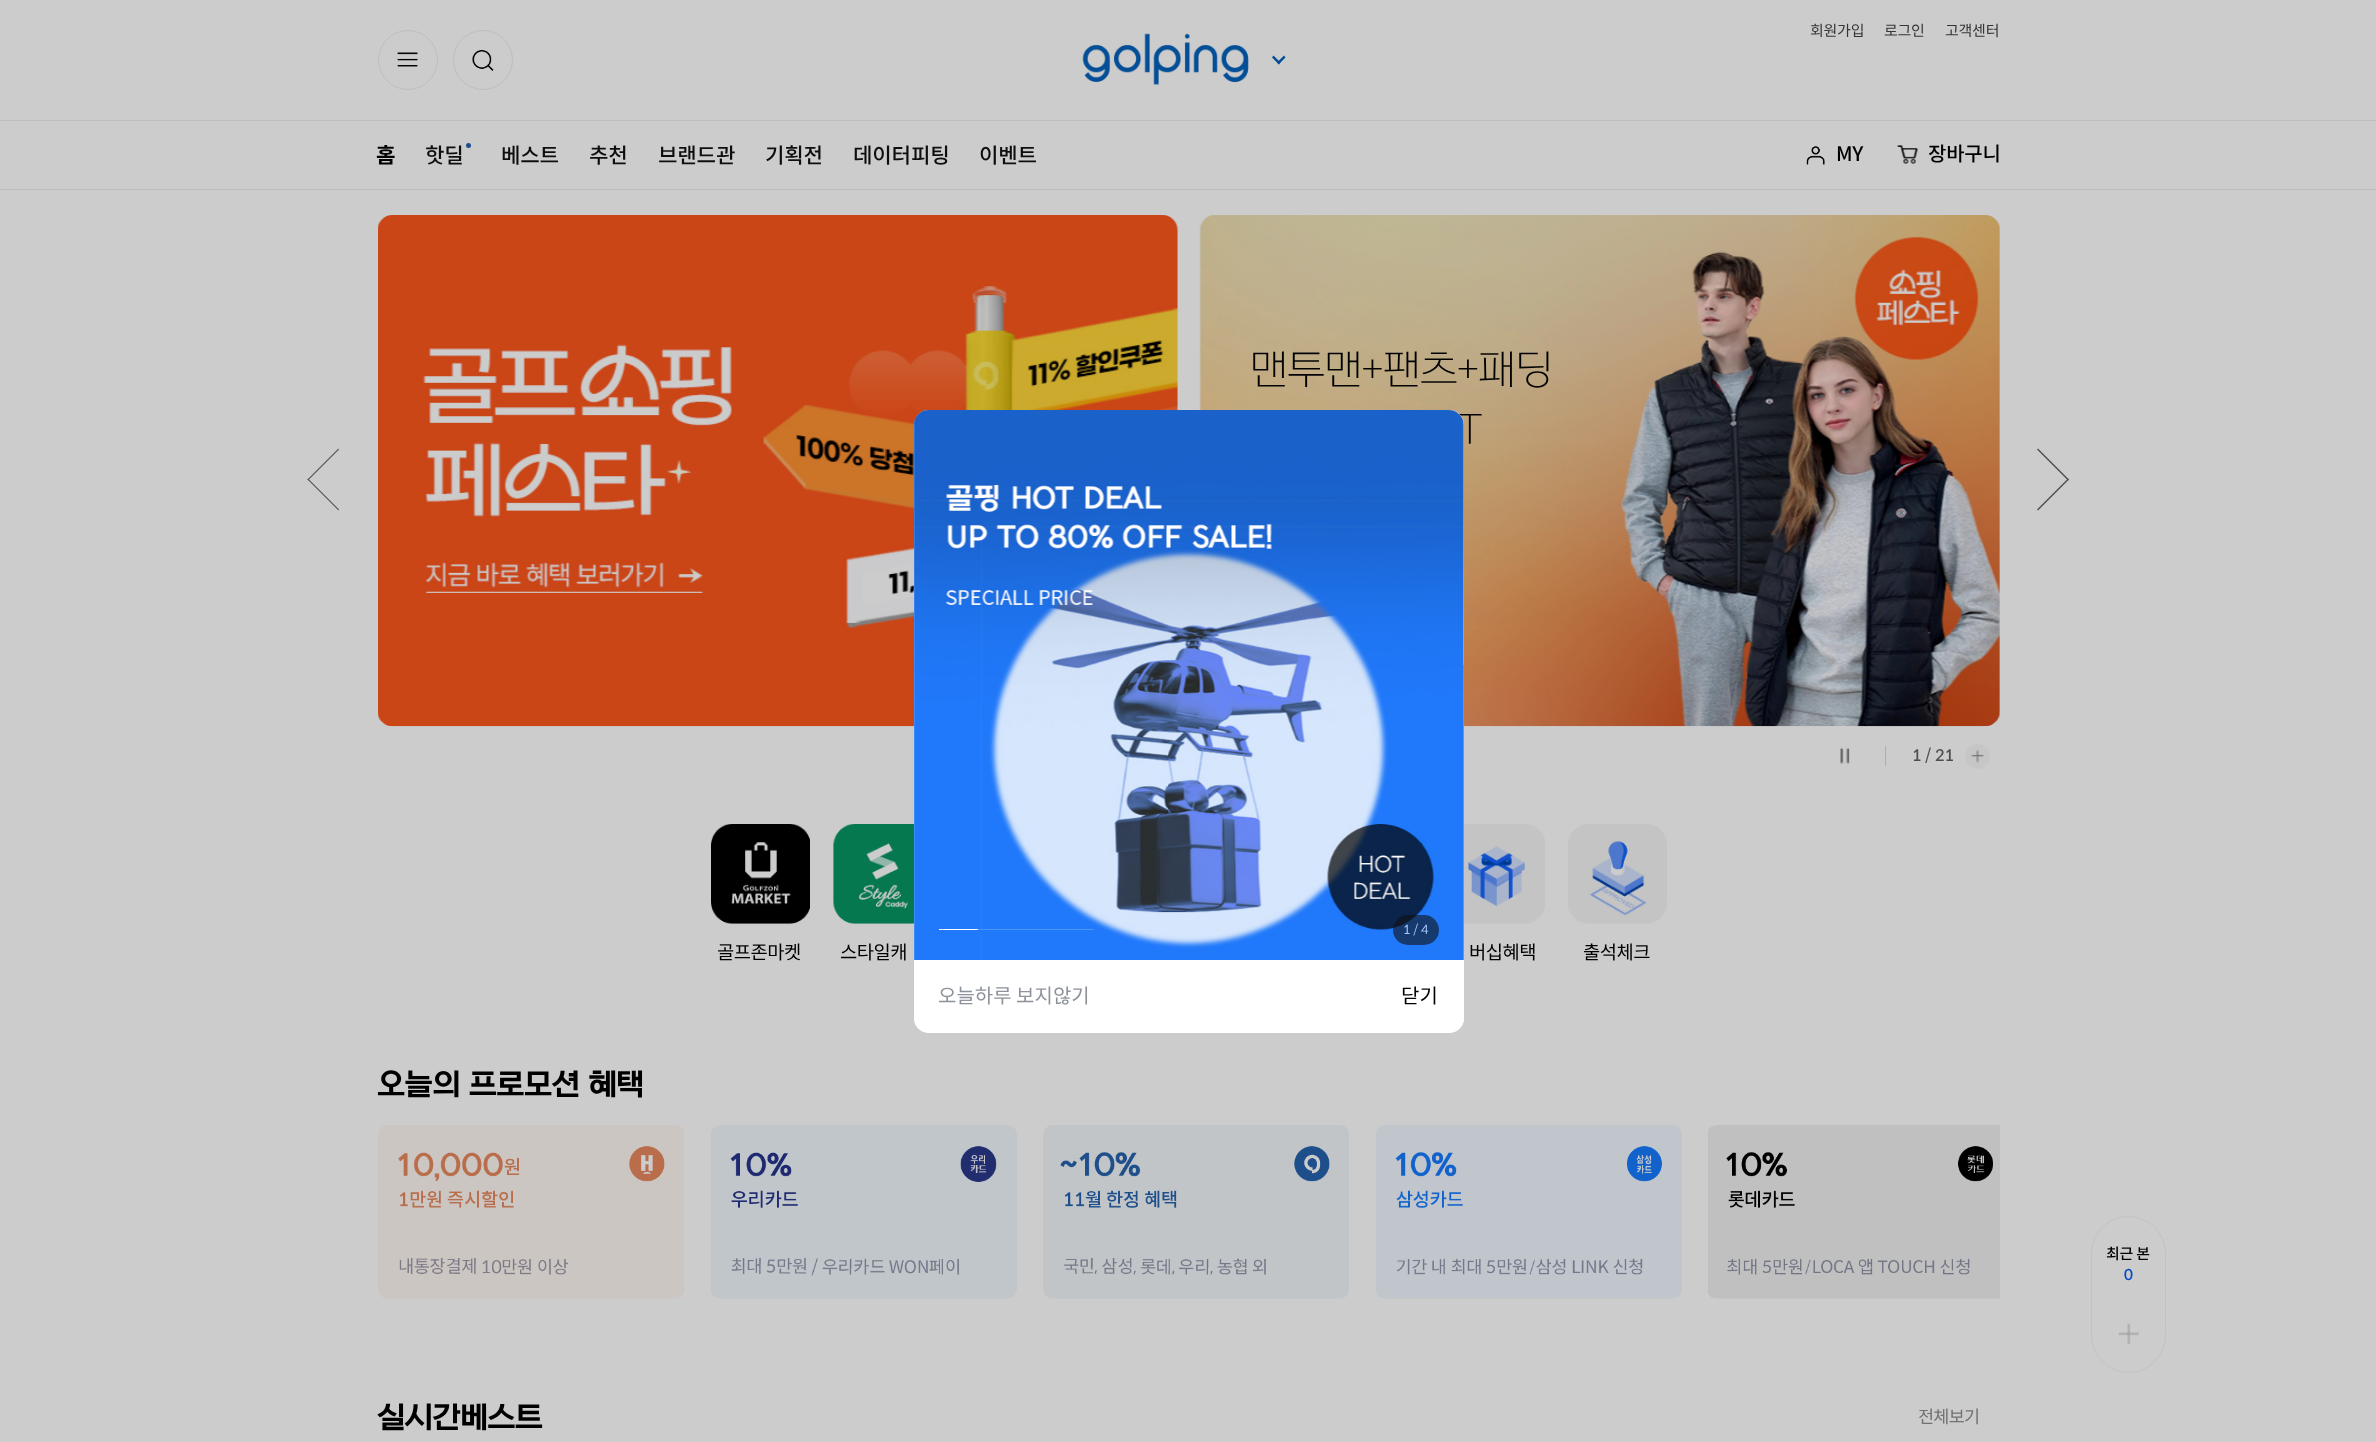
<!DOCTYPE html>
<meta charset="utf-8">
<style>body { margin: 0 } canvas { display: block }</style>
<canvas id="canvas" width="2376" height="1442"></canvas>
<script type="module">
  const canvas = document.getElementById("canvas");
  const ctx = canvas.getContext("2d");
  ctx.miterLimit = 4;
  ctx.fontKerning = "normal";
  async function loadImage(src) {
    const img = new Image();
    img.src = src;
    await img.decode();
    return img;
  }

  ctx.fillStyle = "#cccccc";
  ctx.fillRect(0, 0, 2376, 1442);
  ctx.beginPath();
  ctx.arc(408, 60, 29.5, 0, Math.PI * 2);
  ctx.strokeStyle = "#bebebe";
  ctx.stroke();
  ctx.drawImage(await loadImage("img1.png"), 397, 52, 21, 15);
  ctx.beginPath();
  ctx.arc(483, 60, 29.5, 0, Math.PI * 2);
  ctx.stroke();
  ctx.drawImage(await loadImage("img2.png"), 472, 50, 22, 21);
  ctx.drawImage(await loadImage("img3.png"), 1082, 33, 167, 52);
  ctx.fillStyle = "#044e98";
  ctx.beginPath();
  ctx.moveTo(1273.5, 55.5);
  ctx.lineTo(1280.5, 62.5);
  ctx.lineTo(1279, 64.5);
  ctx.lineTo(1272, 57.5);
  ctx.closePath();
  ctx.fill();
  ctx.beginPath();
  ctx.moveTo(1277, 62.5);
  ctx.lineTo(1284, 55.5);
  ctx.lineTo(1285.5, 57.5);
  ctx.lineTo(1278.5, 64.5);
  ctx.closePath();
  ctx.fill();
  ctx.letterSpacing = "-0.25px";
  ctx.font = "15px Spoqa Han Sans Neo";
  ctx.fillStyle = "#353535";
  ctx.fillText("회원가입", 1810, 36);
  ctx.fillText("로그인", 1884, 36);
  ctx.fillText("고객센터", 1945, 36);
  ctx.fillStyle = "#bebebe";
  ctx.fillRect(0, 120, 2376, 1);
  ctx.fillRect(0, 189, 2376, 1);
  ctx.font = "bold 21.25px Spoqa Han Sans Neo";
  ctx.fillStyle = "#000000";
  ctx.fillText("홈", 376, 163);
  ctx.font = "500 21.25px Spoqa Han Sans Neo";
  ctx.fillStyle = "#0e0e0e";
  ctx.fillText("핫딜", 425, 163);
  ctx.fillStyle = "#1c4f8b";
  ctx.beginPath();
  ctx.arc(468.5, 145.5, 2.5, 0, Math.PI * 2);
  ctx.fill();
  ctx.fillStyle = "#0e0e0e";
  ctx.fillText("베스트", 501, 163);
  ctx.fillText("추천", 589, 163);
  ctx.fillText("브랜드관", 658, 163);
  ctx.fillText("기획전", 765, 163);
  ctx.fillText("데이터피팅", 853, 163);
  ctx.fillText("이벤트", 979, 163);
  ctx.drawImage(await loadImage("img4.png"), 1806, 146, 19, 19);
  ctx.font = "500 20px Spoqa Han Sans Neo";
  ctx.fillStyle = "#000000";
  ctx.fillText("MY", 1836, 161);
  ctx.drawImage(await loadImage("img5.png"), 1897, 145, 21, 19);
  ctx.fillText("장바구니", 1928, 161);
  ctx.fillStyle = "#c6c6c9";
  ctx.beginPath();
  ctx.roundRect(378, 215, 800, 511, 15);
  ctx.fill();
  ctx.drawImage(await loadImage("img6.png"), 378, 215, 800, 512);
  ctx.beginPath();
  ctx.roundRect(1200, 215, 800, 511, 15);
  ctx.fill();
  ctx.drawImage(await loadImage("img7.png"), 1199, 215, 801, 512);
  ctx.letterSpacing = "-0.5px";
  ctx.font = "300 40px 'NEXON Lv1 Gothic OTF'";
  ctx.fillStyle = "#000000";
  ctx.fillText("맨투맨+팬츠+패딩", 1250, 384);
  ctx.fillText("T", 1457, 444);
  ctx.drawImage(await loadImage("img8.png"), 1840, 747, 10, 17);
  ctx.fillStyle = "#aaaeb6";
  ctx.fillRect(1885, 746, 1, 20);
  ctx.letterSpacing = "0px";
  ctx.font = "500 16px Spoqa Han Sans Neo";
  ctx.fillStyle = "#4e4e4e";
  ctx.fillText("1 / 21", 1912, 761);
  ctx.drawImage(await loadImage("img9.png"), 1965, 744, 25, 25);
  ctx.beginPath();
  ctx.moveTo(338.5, 510.5);
  ctx.lineTo(307.5, 479.5);
  ctx.lineTo(308, 478.5);
  ctx.lineTo(339, 509.5);
  ctx.closePath();
  ctx.fill();
  ctx.beginPath();
  ctx.moveTo(308, 480.5);
  ctx.lineTo(307.5, 479.5);
  ctx.lineTo(338.5, 448.5);
  ctx.lineTo(339, 449.5);
  ctx.closePath();
  ctx.fill();
  ctx.beginPath();
  ctx.moveTo(2038, 448.5);
  ctx.lineTo(2069, 479.5);
  ctx.lineTo(2068, 480.5);
  ctx.lineTo(2037, 449.5);
  ctx.closePath();
  ctx.fill();
  ctx.beginPath();
  ctx.moveTo(2068, 478.5);
  ctx.lineTo(2069, 479.5);
  ctx.lineTo(2038, 510.5);
  ctx.lineTo(2037, 509.5);
  ctx.closePath();
  ctx.fill();
  ctx.drawImage(await loadImage("img10.png"), 711, 824, 99, 100);
  ctx.letterSpacing = "-0.5px";
  ctx.font = "18.75px Spoqa Han Sans Neo";
  ctx.fillStyle = "#000000";
  ctx.fillText("골프존마켓", 717, 959);
  ctx.drawImage(await loadImage("img11.png"), 833, 824, 81, 100);
  ctx.fillText("스타일캐", 840, 959);
  ctx.drawImage(await loadImage("img12.png"), 1464, 824, 81, 100);
  ctx.fillText("버십혜택", 1469, 959);
  ctx.drawImage(await loadImage("img13.png"), 1568, 824, 99, 100);
  ctx.fillText("출석체크", 1583, 959);
  ctx.letterSpacing = "-0.75px";
  ctx.font = "bold 30px 'NEXON Lv1 Gothic OTF'";
  ctx.fillText("오늘의 프로모션 혜택", 377, 1095);
  ctx.drawImage(await loadImage("img14.png"), 378, 1125, 306, 174);
  ctx.drawImage(await loadImage("img15.png"), 711, 1125, 306, 174);
  ctx.drawImage(await loadImage("img16.png"), 1043, 1125, 306, 174);
  ctx.drawImage(await loadImage("img17.png"), 1376, 1125, 306, 174);
  ctx.drawImage(await loadImage("img18.png"), 1708, 1125, 292, 174);
  ctx.fillText("실시간베스트", 377, 1428);
  ctx.font = "17.5px Spoqa Han Sans Neo";
  ctx.fillStyle = "#727272";
  ctx.fillText("전체보기", 1918, 1423);
  ctx.beginPath();
  ctx.roundRect(2091.5, 1216.5, 74, 156, 37);
  ctx.strokeStyle = "#c0c2c5";
  ctx.stroke();
  ctx.letterSpacing = "-0.25px";
  ctx.font = "500 15px Spoqa Han Sans Neo";
  ctx.fillStyle = "#000000";
  ctx.fillText("최근 본", 2106, 1259);
  ctx.fillStyle = "#0046cc";
  ctx.fillText("0", 2124, 1280);
  ctx.drawImage(await loadImage("img19.png"), 2118, 1323, 21, 21);
  ctx.fillStyle = "#ffffff";
  ctx.beginPath();
  ctx.roundRect(914, 410, 550, 623, 15);
  ctx.fill();
  ctx.drawImage(await loadImage("img20.png"), 914, 410, 550, 550);
  ctx.drawImage(await loadImage("img21.png"), 1463, 421, 1, 539);
  ctx.fillStyle = "rgba(255, 255, 255, 0.2)";
  ctx.fillRect(978, 929, 116, 1);
  ctx.fillStyle = "#ffffff";
  ctx.fillRect(939, 929, 39, 1);
  ctx.fillStyle = "rgba(17, 17, 17, 0.6)";
  ctx.beginPath();
  ctx.roundRect(1393, 915, 46, 30, 15);
  ctx.fill();
  ctx.letterSpacing = "0px";
  ctx.font = "12.5px Spoqa Han Sans Neo";
  ctx.fillStyle = "#a6c9fd";
  ctx.fillText("1 / 4", 1403, 934);
  ctx.fillStyle = "#ffffff";
  ctx.beginPath();
  ctx.roundRect(914, 960, 550, 73, [0, 0, 15, 15]);
  ctx.fill();
  ctx.font = "20px Spoqa Han Sans Neo";
  ctx.fillStyle = "#8d929b";
  ctx.fillText("오늘하루 보지않기", 938, 1003);
  ctx.fillStyle = "#000000";
  ctx.fillText("닫기", 1401, 1003);
</script>
